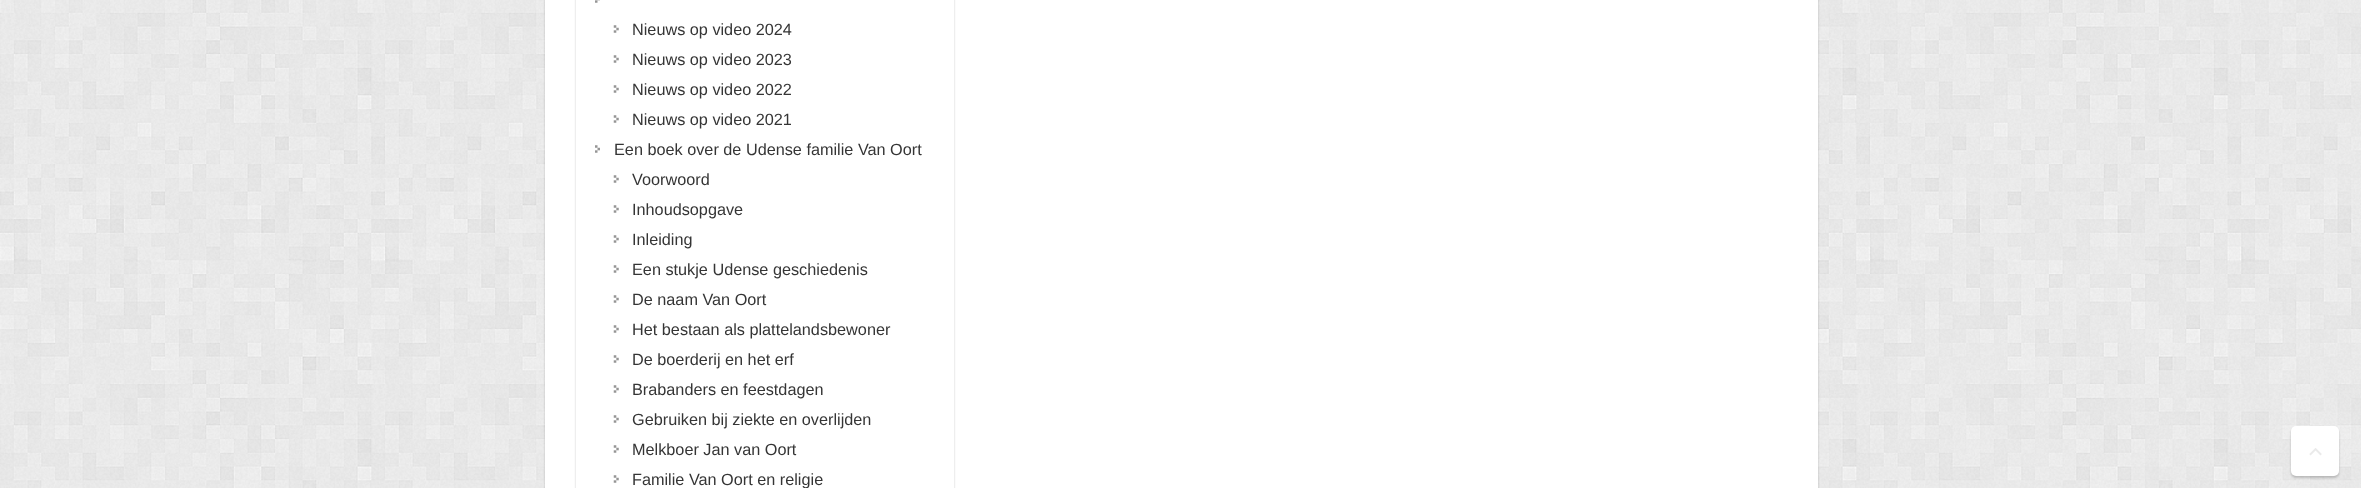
<!DOCTYPE html>
<meta charset="utf-8">
<style>body { margin: 0 } canvas { display: block }</style>
<canvas id="canvas" width="2361" height="488"></canvas>
<script type="module">
  const canvas = document.getElementById("canvas");
  const ctx = canvas.getContext("2d");
  ctx.miterLimit = 4;
  ctx.fontKerning = "normal";
  async function loadImage(src) {
    const img = new Image();
    img.src = src;
    await img.decode();
    return img;
  }

  ctx.fillStyle = "#ffffff";
  ctx.fillRect(0, 0, 2361, 488);
  ctx.drawImage(await loadImage("img1.png"), 0, 0, 2361, 488);
  ctx.fillStyle = "rgba(0, 0, 0, 0.2)";
  ctx.filter = "blur(1px)";
  ctx.beginPath();
  ctx.roundRect(545, -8, 1273, 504, 5);
  ctx.fill();
  ctx.filter = "none";
  ctx.fillStyle = "#ffffff";
  ctx.fillRect(545, 0, 1273, 488);
  ctx.fillStyle = "rgba(0, 0, 0, 0.2)";
  ctx.filter = "blur(1px)";
  ctx.beginPath();
  ctx.roundRect(576, -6, 378, 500, 2.5);
  ctx.fill();
  ctx.filter = "none";
  ctx.fillStyle = "#ffffff";
  ctx.fillRect(576, 0, 378, 488);
  ctx.drawImage(await loadImage("img2.png"), 595, 0, 5, 3);
  ctx.drawImage(await loadImage("img3.png"), 613, 25, 6, 8);
  ctx.font = "16.25px Liberation Sans";
  ctx.fillStyle = "#353535";
  ctx.fillText("Nieuws op video 2024", 632, 35);
  ctx.drawImage(await loadImage("img3.png"), 613, 55, 6, 8);
  ctx.fillText("Nieuws op video 2023", 632, 65);
  ctx.drawImage(await loadImage("img3.png"), 613, 85, 6, 8);
  ctx.fillText("Nieuws op video 2022", 632, 95);
  ctx.drawImage(await loadImage("img3.png"), 613, 115, 6, 8);
  ctx.fillText("Nieuws op video 2021", 632, 125);
  ctx.drawImage(await loadImage("img4.png"), 595, 145, 5, 8);
  ctx.fillText("Een boek over de Udense familie Van Oort", 614, 155);
  ctx.drawImage(await loadImage("img3.png"), 613, 175, 6, 8);
  ctx.fillText("Voorwoord", 632, 185);
  ctx.drawImage(await loadImage("img3.png"), 613, 205, 6, 8);
  ctx.fillText("Inhoudsopgave", 632, 215);
  ctx.drawImage(await loadImage("img3.png"), 613, 235, 6, 8);
  ctx.fillText("Inleiding", 632, 245);
  ctx.drawImage(await loadImage("img3.png"), 613, 265, 6, 8);
  ctx.fillText("Een stukje Udense geschiedenis", 632, 275);
  ctx.drawImage(await loadImage("img3.png"), 613, 295, 6, 8);
  ctx.fillText("De naam Van Oort", 632, 305);
  ctx.drawImage(await loadImage("img3.png"), 613, 325, 6, 8);
  ctx.fillText("Het bestaan als plattelandsbewoner", 632, 335);
  ctx.drawImage(await loadImage("img3.png"), 613, 355, 6, 8);
  ctx.fillText("De boerderij en het erf", 632, 365);
  ctx.drawImage(await loadImage("img3.png"), 613, 385, 6, 8);
  ctx.fillText("Brabanders en feestdagen", 632, 395);
  ctx.drawImage(await loadImage("img3.png"), 613, 415, 6, 8);
  ctx.fillText("Gebruiken bij ziekte en overlijden", 632, 425);
  ctx.drawImage(await loadImage("img3.png"), 613, 445, 6, 8);
  ctx.fillText("Melkboer Jan van Oort", 632, 455);
  ctx.drawImage(await loadImage("img3.png"), 613, 475, 6, 8);
  ctx.fillText("Familie Van Oort en religie", 632, 485);
  ctx.fillStyle = "rgba(0, 0, 0, 0.2)";
  ctx.filter = "blur(1px)";
  ctx.beginPath();
  ctx.roundRect(2291, 428, 48, 50, 5);
  ctx.fill();
  ctx.filter = "none";
  ctx.fillStyle = "#ffffff";
  ctx.beginPath();
  ctx.roundRect(2291, 426, 48, 50, 5);
  ctx.fill();
  ctx.drawImage(await loadImage("img5.png"), 2309, 448, 13, 8);
</script>
